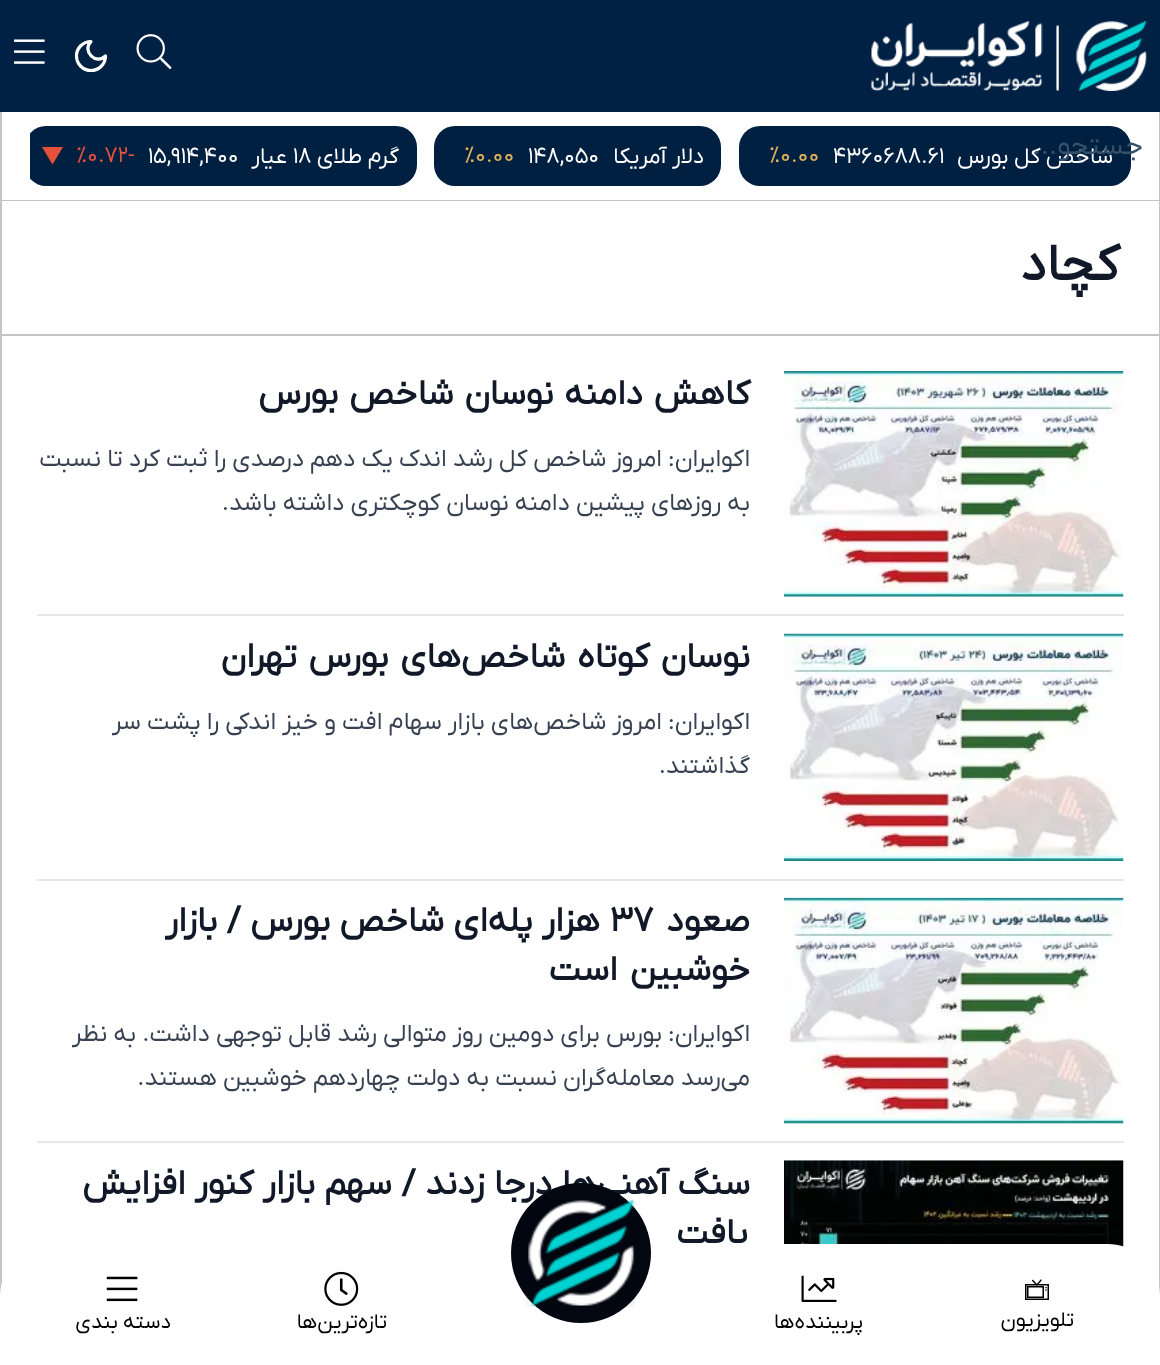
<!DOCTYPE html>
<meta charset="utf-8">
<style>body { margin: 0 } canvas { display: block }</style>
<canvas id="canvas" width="1160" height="1365"></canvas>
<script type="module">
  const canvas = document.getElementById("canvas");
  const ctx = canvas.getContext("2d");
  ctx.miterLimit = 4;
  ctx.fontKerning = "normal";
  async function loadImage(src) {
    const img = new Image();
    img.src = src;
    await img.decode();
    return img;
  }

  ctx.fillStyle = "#ffffff";
  ctx.fillRect(0, 0, 1160, 1365);
  ctx.fillStyle = "#002144";
  ctx.fillRect(0, 0, 1160, 112);
  ctx.drawImage(await loadImage("img1.png"), 1076, 21, 71, 70);
  ctx.drawImage(await loadImage("img2.png"), 871, 21, 188, 70);
  ctx.drawImage(await loadImage("img3.png"), 136, 34, 36, 36);
  ctx.beginPath();
  ctx.moveTo(91, 41.5);
  ctx.bezierCurveTo(81.5, 51, 96, 65.5, 105.5, 56);
  ctx.bezierCurveTo(105.5, 64, 99, 70.5, 91, 70.5);
  ctx.bezierCurveTo(83, 70.5, 76.5, 64, 76.5, 56);
  ctx.bezierCurveTo(76.5, 48, 83, 41.5, 91, 41.5);
  ctx.closePath();
  ctx.strokeStyle = "#ffffff";
  ctx.lineWidth = 3.2;
  ctx.lineCap = "round";
  ctx.lineJoin = "round";
  ctx.stroke();
  ctx.drawImage(await loadImage("img4.png"), 14, 39, 31, 25);
  ctx.fillStyle = "#002042";
  ctx.beginPath();
  ctx.roundRect(739, 126, 392, 60, 21);
  ctx.fill();
  ctx.direction = "rtl";
  ctx.font = "22.5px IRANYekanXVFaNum";
  ctx.fillStyle = "#ffffff";
  ctx.fillText("شاخص کل بورس", 1113, 163);
  ctx.font = "28px IRANYekanXVFaNum";
  ctx.fillStyle = "#36506a";
  ctx.fillText("جستجو...", 1143, 154);
  ctx.fillStyle = "#c4c4c4";
  ctx.fillRect(1159, 112, 1, 1185);
  ctx.fillRect(0, 200, 1160, 1);
  ctx.fillRect(0, 112, 2, 1185);
  ctx.direction = "ltr";
  ctx.font = "22.5px IRANYekanXVFaNum";
  ctx.fillStyle = "#ffffff";
  ctx.fillText("4360688.61", 833, 163);
  ctx.fillStyle = "#deb15f";
  ctx.fillText("%0.00", 769, 162);
  ctx.fillStyle = "#002042";
  ctx.beginPath();
  ctx.roundRect(434, 126, 287, 60, 21);
  ctx.fill();
  ctx.direction = "rtl";
  ctx.fillStyle = "#ffffff";
  ctx.fillText("دلار آمریکا", 704, 163);
  ctx.direction = "ltr";
  ctx.fillText("148,050", 528, 163);
  ctx.fillStyle = "#deb15f";
  ctx.fillText("%0.00", 464, 162);
  ctx.save();
  ctx.beginPath();
  ctx.rect(30, 126, 1101, 60);
  ctx.clip();
  ctx.fillStyle = "#002042";
  ctx.beginPath();
  ctx.roundRect(25, 126, 392, 60, 21);
  ctx.fill();
  ctx.restore();
  ctx.direction = "rtl";
  ctx.fillStyle = "#ffffff";
  ctx.fillText("گرم طلای", 399, 163);
  ctx.direction = "ltr";
  ctx.fillText("۱۸", 293, 163);
  ctx.direction = "rtl";
  ctx.fillText("عیار", 287, 163);
  ctx.direction = "ltr";
  ctx.fillText("15,914,400", 148, 163);
  ctx.fillStyle = "#e6513c";
  ctx.fillText("%0.72-", 76, 162);
  ctx.beginPath();
  ctx.moveTo(52.5, 164.5);
  ctx.lineTo(42, 147);
  ctx.lineTo(63, 147);
  ctx.closePath();
  ctx.fill("evenodd");
  ctx.fillStyle = "#c4c4c4";
  ctx.fillRect(2, 334, 1157, 2);
  ctx.direction = "rtl";
  ctx.font = "bold 52px IRANYekanXVFaNum";
  ctx.fillStyle = "#111827";
  ctx.fillText("کچاد", 1119, 280);
  ctx.fillStyle = "#e5e7eb";
  ctx.fillRect(37, 614, 1087, 2);
  ctx.drawImage(await loadImage("img5.png"), 784, 371, 340, 226);
  ctx.wordSpacing = "2px";
  ctx.font = "bold 35px IRANYekanXVFaNum";
  ctx.fillStyle = "#111827";
  ctx.fillText("کاهش دامنه نوسان شاخص بورس", 750, 404);
  ctx.wordSpacing = "0px";
  ctx.font = "24.5px IRANYekanXVFaNum";
  ctx.fillStyle = "#374151";
  ctx.fillText("اکوایران: امروز شاخص کل رشد اندک یک دهم درصدی را ثبت کرد تا نسبت", 750, 466);
  ctx.fillText("به روزهای پیشین دامنه نوسان کوچکتری داشته باشد.", 750, 510);
  ctx.fillStyle = "#e5e7eb";
  ctx.fillRect(37, 879, 1087, 2);
  ctx.drawImage(await loadImage("img6.png"), 784, 633, 340, 228);
  ctx.wordSpacing = "3px";
  ctx.font = "bold 35px IRANYekanXVFaNum";
  ctx.fillStyle = "#111827";
  ctx.fillText("نوسان کوتاه شاخص‌های بورس تهران", 750, 667);
  ctx.wordSpacing = "0px";
  ctx.font = "24.5px IRANYekanXVFaNum";
  ctx.fillStyle = "#374151";
  ctx.fillText("اکوایران: امروز شاخص‌های بازار سهام افت و خیز اندکی را پشت سر", 750, 729);
  ctx.fillText("گذاشتند.", 750, 773);
  ctx.fillStyle = "#e5e7eb";
  ctx.fillRect(37, 1141, 1087, 2);
  ctx.drawImage(await loadImage("img7.png"), 784, 897, 340, 227);
  ctx.font = "bold 35px IRANYekanXVFaNum";
  ctx.fillStyle = "#111827";
  ctx.fillText("صعود", 750, 931);
  ctx.direction = "ltr";
  ctx.fillText("37", 610, 931);
  ctx.wordSpacing = "0.5px";
  ctx.direction = "rtl";
  ctx.fillText("هزار پله‌ای شاخص بورس / بازار", 600, 931);
  ctx.wordSpacing = "4px";
  ctx.fillText("خوشبین است", 750, 980);
  ctx.wordSpacing = "0px";
  ctx.font = "24.5px IRANYekanXVFaNum";
  ctx.fillStyle = "#374151";
  ctx.fillText("اکوایران: بورس برای دومین روز متوالی رشد قابل توجهی داشت. به نظر", 750, 1041);
  ctx.fillText("می‌رسد معامله‌گران نسبت به دولت چهاردهم خوشبین هستند.", 750, 1085);
  ctx.drawImage(await loadImage("img8.png"), 784, 1160, 340, 87);
  ctx.wordSpacing = "0.75px";
  ctx.font = "bold 35px IRANYekanXVFaNum";
  ctx.fillStyle = "#111827";
  ctx.fillText("سنگ آهنی‌ها درجا زدند / سهم بازار کنور افزایش", 750, 1194);
  ctx.wordSpacing = "0px";
  ctx.fillText("یافت", 748, 1243);
  ctx.fillStyle = "#ffffff";
  ctx.beginPath();
  ctx.moveTo(697, 1244);
  ctx.lineTo(1107, 1244);
  ctx.bezierCurveTo(1136.5, 1244, 1160, 1267.5, 1160, 1297);
  ctx.lineTo(1160, 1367);
  ctx.lineTo(697, 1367);
  ctx.closePath();
  ctx.fill();
  ctx.drawImage(await loadImage("img9.png"), 1025, 1279, 24, 21);
  ctx.font = "21px IRANYekanXVFaNum";
  ctx.fillStyle = "#000000";
  ctx.fillText("تلویزیون", 1074, 1326);
  ctx.drawImage(await loadImage("img10.png"), 801, 1275, 36, 27);
  ctx.fillText("پربیننده‌ها", 863, 1328);
  ctx.fillStyle = "#030712";
  ctx.beginPath();
  ctx.arc(581, 1253, 70, 0, Math.PI * 2);
  ctx.fill();
  ctx.drawImage(await loadImage("img11.png"), 525, 1199, 110, 108);
  ctx.fillStyle = "#ffffff";
  ctx.beginPath();
  ctx.moveTo(53, 1244);
  ctx.lineTo(466, 1244);
  ctx.lineTo(466, 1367);
  ctx.lineTo(0, 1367);
  ctx.lineTo(0, 1297);
  ctx.bezierCurveTo(0, 1267.5, 23.5, 1244, 53, 1244);
  ctx.closePath();
  ctx.fill();
  ctx.drawImage(await loadImage("img12.png"), 324, 1271, 35, 35);
  ctx.fillStyle = "#000000";
  ctx.fillText("تازه‌ترین‌ها", 387, 1328);
  ctx.drawImage(await loadImage("img13.png"), 106, 1276, 32, 26);
  ctx.fillText("دسته بندی", 171, 1328);
</script>
